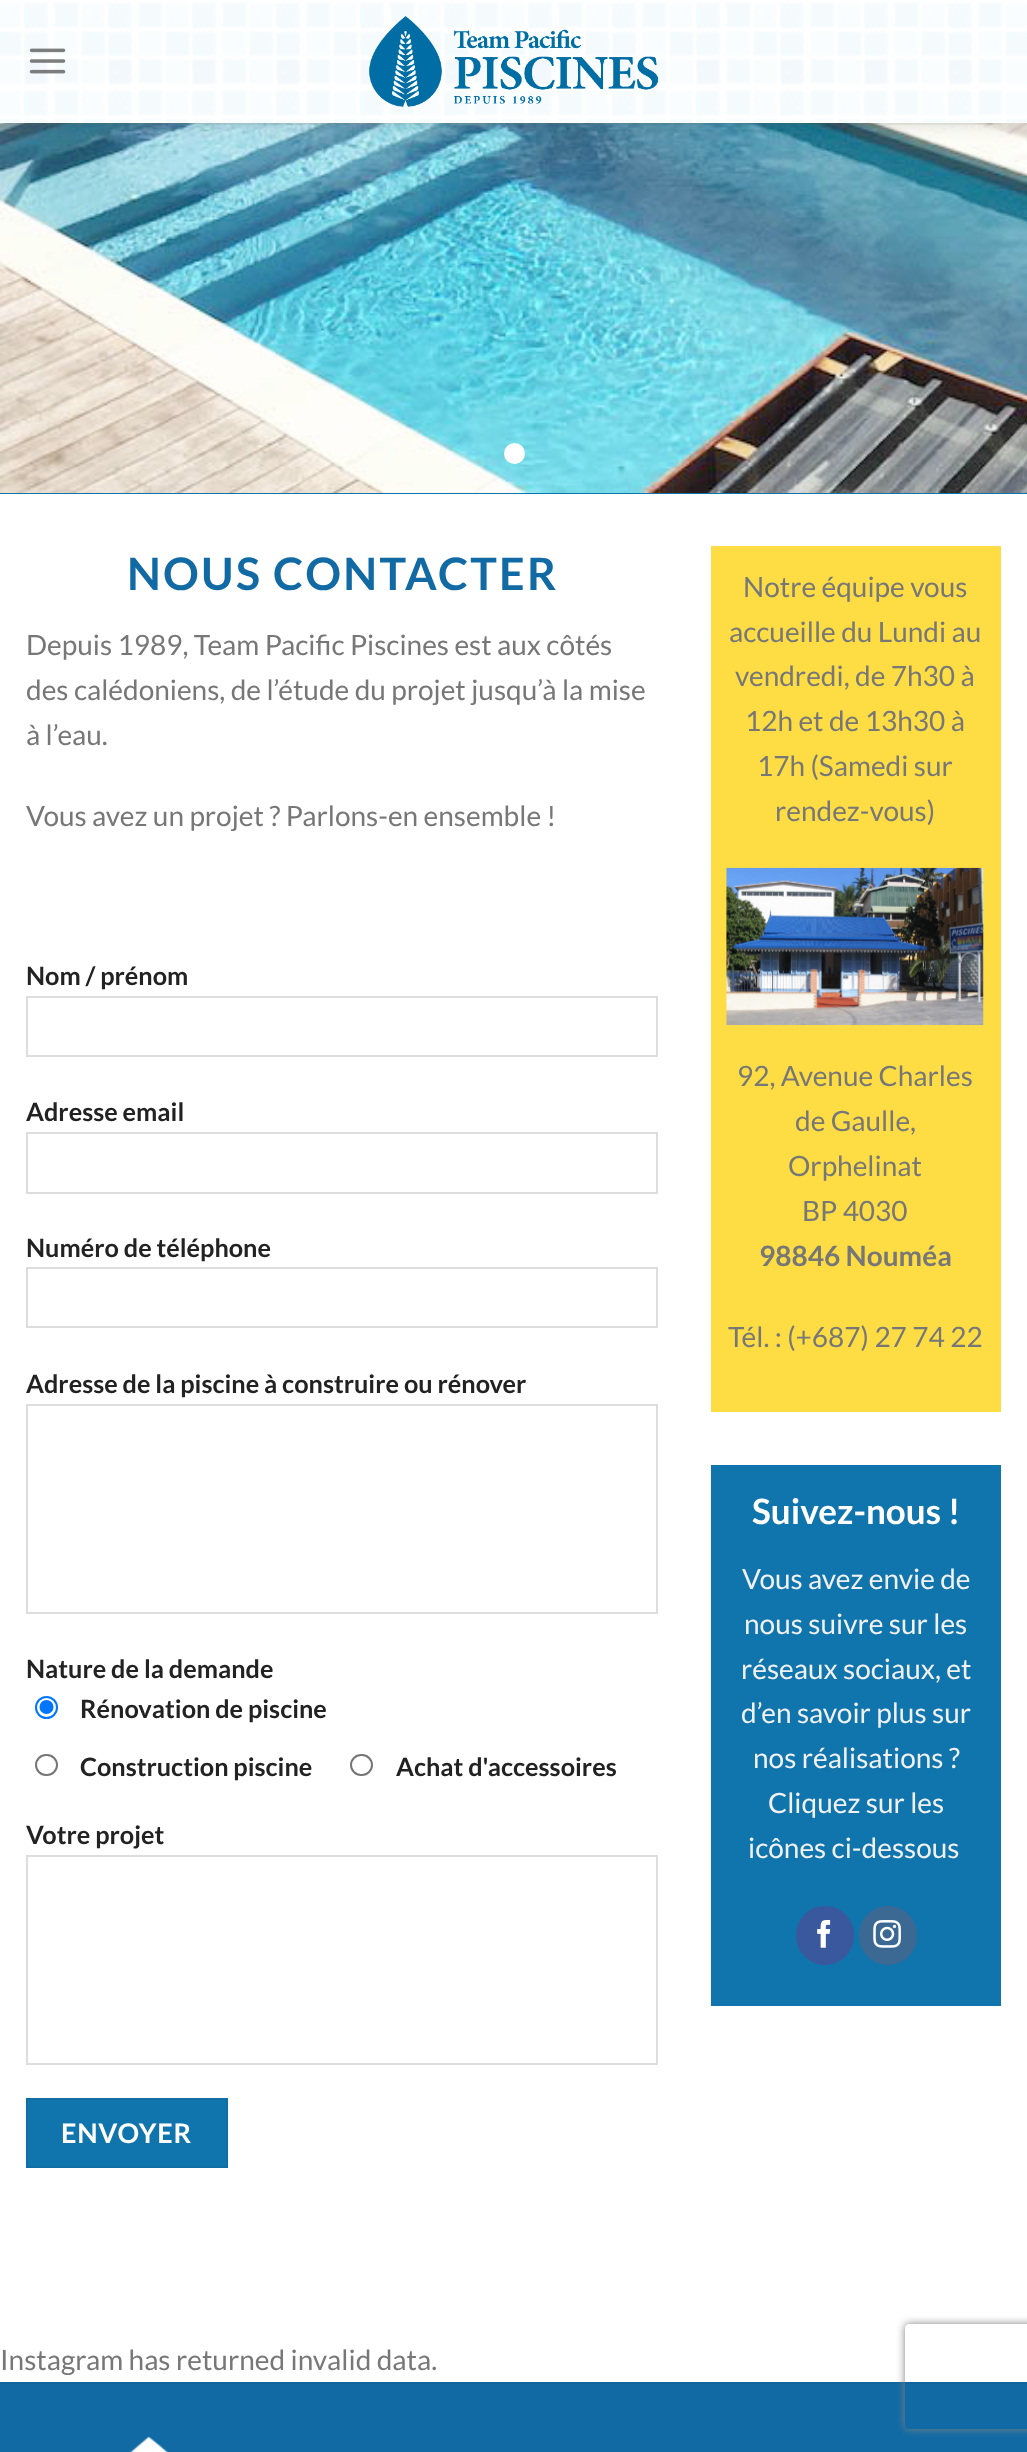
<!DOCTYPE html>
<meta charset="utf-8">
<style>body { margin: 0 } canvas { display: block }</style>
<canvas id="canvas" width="1027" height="2452"></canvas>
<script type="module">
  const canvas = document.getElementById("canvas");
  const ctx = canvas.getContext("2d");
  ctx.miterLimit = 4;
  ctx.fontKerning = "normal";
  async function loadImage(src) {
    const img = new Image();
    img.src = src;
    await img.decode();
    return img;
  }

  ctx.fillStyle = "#ffffff";
  ctx.fillRect(0, 0, 1027, 2452);
  ctx.drawImage(await loadImage("img4.png"), 0, 122, 1027, 371);
  ctx.fillStyle = "rgba(0, 0, 0, 0.15)";
  ctx.filter = "blur(9px)";
  ctx.beginPath();
  ctx.rect(2, 2, 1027, 122);
  ctx.fill();
  ctx.filter = "none";
  ctx.fillStyle = "rgba(255, 255, 255, 0.95)";
  ctx.fillRect(0, 122, 1027, 1);
  ctx.drawImage(await loadImage("img1.png"), 0, 0, 1027, 123);
  ctx.fillRect(0, 0, 1027, 123);
  ctx.drawImage(await loadImage("img2.png"), 29, 48, 37, 26);
  ctx.drawImage(await loadImage("img3.png"), 369, 16, 290, 91);
  ctx.fillStyle = "rgba(119, 119, 119, 0.1)";
  ctx.fillRect(26, 123, 975, 2);
  ctx.fillStyle = "#1075ad";
  ctx.fillRect(0, 493, 1027, 1);
  ctx.fillStyle = "#ffffff";
  ctx.beginPath();
  ctx.arc(514.5, 453.5, 8, 0, Math.PI * 2);
  ctx.fill();
  ctx.strokeStyle = "#ffffff";
  ctx.lineWidth = 5;
  ctx.stroke();
  ctx.letterSpacing = "2.25px";
  ctx.font = "bold 44.75px Lato";
  ctx.fillStyle = "#116aa4";
  ctx.fillText("NOUS CONTACTER", 127, 590);
  ctx.letterSpacing = "0px";
  ctx.font = "28px Lato";
  ctx.fillStyle = "#777777";
  ctx.fillText("Depuis 1989, Team Pacific Piscines est aux côtés", 26, 655);
  ctx.fillText("des calédoniens, de l’étude du projet jusqu’à la mise", 26, 700);
  ctx.fillText("à l’eau.", 26, 745);
  ctx.fillText("Vous avez un projet ? Parlons-en ensemble !", 26, 826);
  ctx.font = "bold 25.25px Lato";
  ctx.fillStyle = "#222222";
  ctx.fillText("Nom / prénom", 26, 985);
  ctx.strokeStyle = "#dddddd";
  ctx.lineWidth = 2;
  ctx.strokeRect(27, 997, 630, 59);
  ctx.fillText("Adresse email", 26, 1121);
  ctx.strokeRect(27, 1133, 630, 60);
  ctx.fillText("Numéro de téléphone", 26, 1257);
  ctx.strokeRect(27, 1268, 630, 59);
  ctx.fillText("Adresse de la piscine à construire ou rénover", 26, 1393);
  ctx.strokeRect(27, 1405, 630, 208);
  ctx.fillText("Nature de la demande", 26, 1678);
  ctx.beginPath();
  ctx.arc(46.5, 1707.5, 10.5, 0, Math.PI * 2);
  ctx.strokeStyle = "#0075ff";
  ctx.stroke();
  ctx.fillStyle = "#0075ff";
  ctx.beginPath();
  ctx.arc(46.5, 1707, 7, 0, Math.PI * 2);
  ctx.fill();
  ctx.fillStyle = "#222222";
  ctx.fillText("Rénovation de piscine", 80, 1718);
  ctx.beginPath();
  ctx.roundRect(36, 1755, 21, 20, 10);
  ctx.strokeStyle = "#767676";
  ctx.stroke();
  ctx.fillText("Construction piscine", 80, 1776);
  ctx.beginPath();
  ctx.roundRect(351, 1755, 21, 20, 10);
  ctx.stroke();
  ctx.fillText("Achat d'accessoires", 396, 1776);
  ctx.fillText("Votre projet", 26, 1844);
  ctx.strokeStyle = "#dddddd";
  ctx.strokeRect(27, 1856, 630, 208);
  ctx.fillStyle = "#1075ad";
  ctx.beginPath();
  ctx.rect(27, 2099, 200, 68);
  ctx.fill();
  ctx.strokeStyle = "#0f6fa4";
  ctx.stroke();
  ctx.letterSpacing = "0.75px";
  ctx.font = "bold 27px Lato";
  ctx.fillStyle = "#ffffff";
  ctx.fillText("ENVOYER", 61, 2143);
  ctx.fillStyle = "#fedd44";
  ctx.fillRect(711, 546, 290, 866);
  ctx.letterSpacing = "0px";
  ctx.font = "28px Lato";
  ctx.fillStyle = "#777777";
  ctx.fillText("Notre équipe vous", 743, 597);
  ctx.fillText("accueille du Lundi au", 729, 642);
  ctx.fillText("vendredi, de 7h30 à", 735, 686);
  ctx.fillText("12h et de 13h30 à", 745, 731);
  ctx.fillText("17h (Samedi sur", 757, 776);
  ctx.fillText("rendez-vous)", 775, 821);
  ctx.drawImage(await loadImage("img5.png"), 726, 867, 258, 159);
  ctx.fillText("92, Avenue Charles", 737, 1086);
  ctx.fillText("de Gaulle,", 795, 1131);
  ctx.fillText("Orphelinat", 788, 1176);
  ctx.fillText("BP 4030", 802, 1221);
  ctx.font = "bold 28px Lato";
  ctx.fillText("98846 Nouméa", 759, 1266);
  ctx.font = "28px Lato";
  ctx.fillText("Tél. : (+687) 27 74 22", 728, 1347);
  ctx.fillStyle = "#1075ad";
  ctx.fillRect(711, 1465, 290, 541);
  ctx.font = "bold 35px Lato";
  ctx.fillStyle = "#ffffff";
  ctx.fillText("Suivez-nous !", 752, 1524);
  ctx.font = "28px Lato";
  ctx.fillStyle = "#f1f1f1";
  ctx.fillText("Vous avez envie de", 742, 1589);
  ctx.fillText("nous suivre sur les", 744, 1634);
  ctx.fillText("réseaux sociaux, et", 741, 1679);
  ctx.fillText("d’en savoir plus sur", 741, 1723);
  ctx.fillText("nos réalisations ?", 753, 1768);
  ctx.fillText("Cliquez sur les", 768, 1813);
  ctx.fillText("icônes ci-dessous", 748, 1858);
  ctx.fillStyle = "#3a589d";
  ctx.beginPath();
  ctx.roundRect(797, 1907, 56, 57, 28);
  ctx.fill();
  ctx.strokeStyle = "#3a589d";
  ctx.stroke();
  ctx.drawImage(await loadImage("img6.png"), 817, 1920, 14, 28);
  ctx.fillStyle = "#3b6994";
  ctx.beginPath();
  ctx.roundRect(860, 1907, 56, 57, 28);
  ctx.fill();
  ctx.strokeStyle = "#3b6994";
  ctx.stroke();
  ctx.drawImage(await loadImage("img7.png"), 873, 1920, 28, 28);
  ctx.fillStyle = "#777777";
  ctx.fillText("Instagram has returned invalid data.", 0, 2370);
  ctx.fillStyle = "#116aa4";
  ctx.fillRect(0, 2384, 1027, 68);
  ctx.fillStyle = "#10659c";
  ctx.fillRect(0, 2382, 1027, 2);
  ctx.drawImage(await loadImage("img8.png"), 130, 2436, 38, 16);
  ctx.save();
  ctx.beginPath();
  ctx.moveTo(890, 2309);
  ctx.lineTo(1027, 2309);
  ctx.lineTo(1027, 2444);
  ctx.lineTo(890, 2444);
  ctx.closePath();
  ctx.moveTo(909, 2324);
  ctx.lineTo(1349, 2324);
  ctx.bezierCurveTo(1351, 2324, 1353, 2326, 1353, 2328);
  ctx.lineTo(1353, 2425);
  ctx.bezierCurveTo(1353, 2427, 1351, 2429, 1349, 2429);
  ctx.lineTo(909, 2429);
  ctx.bezierCurveTo(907, 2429, 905, 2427, 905, 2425);
  ctx.lineTo(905, 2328);
  ctx.bezierCurveTo(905, 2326, 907, 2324, 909, 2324);
  ctx.closePath();
  ctx.clip("evenodd");
  ctx.fillStyle = "#808080";
  ctx.filter = "blur(4.5px)";
  ctx.beginPath();
  ctx.roundRect(905, 2324, 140, 105, 4);
  ctx.fill();
  ctx.filter = "none";
  ctx.restore();
</script>
